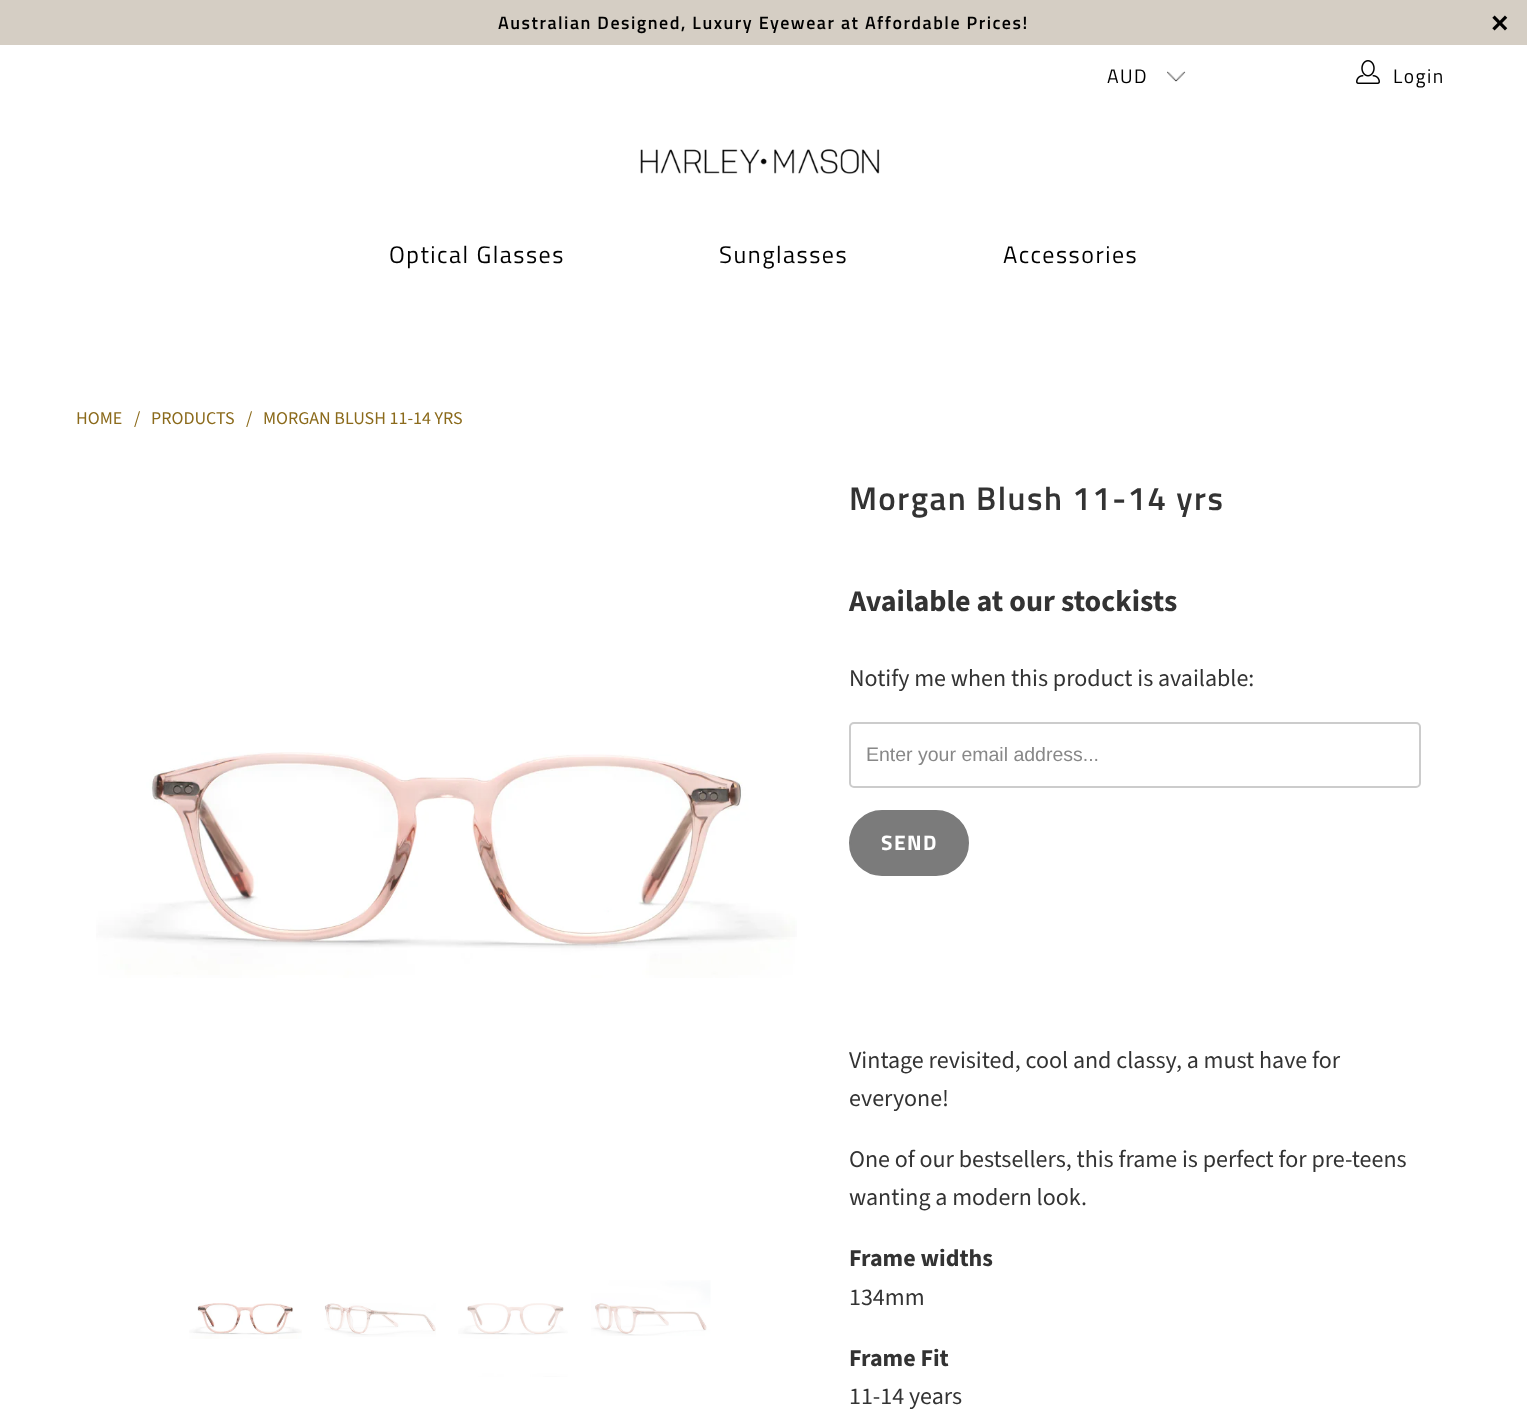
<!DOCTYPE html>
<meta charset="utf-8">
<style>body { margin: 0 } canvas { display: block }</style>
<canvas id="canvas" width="1527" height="1410"></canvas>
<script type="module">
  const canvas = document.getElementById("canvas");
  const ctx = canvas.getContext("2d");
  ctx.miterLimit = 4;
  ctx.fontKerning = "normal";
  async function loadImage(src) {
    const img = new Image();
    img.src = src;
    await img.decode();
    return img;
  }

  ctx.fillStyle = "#ffffff";
  ctx.fillRect(0, 0, 1527, 1410);
  ctx.fillStyle = "#d5cec4";
  ctx.fillRect(0, 0, 1527, 45);
  ctx.letterSpacing = "1.5px";
  ctx.font = "600 18px Titillium Web";
  ctx.fillStyle = "#000000";
  ctx.fillText("Australian Designed, Luxury Eyewear at Affordable Prices!", 498, 29);
  ctx.font = "bold 30px Liberation Sans";
  ctx.fillText("×", 1491, 33);
  ctx.drawImage(await loadImage("img1.png"), 1167, 71, 19, 11);
  ctx.font = "19.5px Titillium Web";
  ctx.fillText("AUD", 1107, 83);
  ctx.drawImage(await loadImage("img2.png"), 1356, 60, 24, 24);
  ctx.fillText("Login", 1393, 83);
  ctx.drawImage(await loadImage("img3.png"), 640, 149, 240, 25);
  ctx.font = "24px Titillium Web";
  ctx.fillText("Optical Glasses", 389, 263);
  ctx.fillText("Sunglasses", 719, 263);
  ctx.fillText("Accessories", 1003, 263);
  ctx.letterSpacing = "0px";
  ctx.font = "18px Source Sans Pro";
  ctx.fillStyle = "#8b6a1b";
  ctx.fillText("HOME", 76, 424);
  ctx.fillText("/", 134, 424);
  ctx.fillText("PRODUCTS", 151, 424);
  ctx.fillText("/", 246, 424);
  ctx.fillText("MORGAN BLUSH 11-14 YRS", 263, 424);
  ctx.drawImage(await loadImage("img4.png"), 96, 752, 701, 226);
  ctx.drawImage(await loadImage("img5.png"), 189, 1303, 113, 36);
  ctx.drawImage(await loadImage("img6.png"), 324, 1303, 112, 34);
  ctx.drawImage(await loadImage("img7.png"), 458, 1303, 110, 74);
  ctx.drawImage(await loadImage("img8.png"), 591, 1280, 120, 56);
  ctx.letterSpacing = "1.5px";
  ctx.font = "600 33px Titillium Web";
  ctx.fillStyle = "#333333";
  ctx.fillText("Morgan Blush 11-14 yrs", 849, 510);
  ctx.letterSpacing = "0px";
  ctx.font = "bold 30px Source Sans Pro";
  ctx.fillText("Available at our stockists", 849, 611);
  ctx.font = "24px Source Sans Pro";
  ctx.fillText("Notify me when this product is available:", 849, 686);
  ctx.beginPath();
  ctx.roundRect(850, 723, 570, 64, 4);
  ctx.strokeStyle = "#cccccc";
  ctx.lineWidth = 2;
  ctx.stroke();
  ctx.font = "19.5px Liberation Sans";
  ctx.fillStyle = "#888888";
  ctx.fillText("Enter your email address...", 866, 761);
  ctx.fillStyle = "#7b7b7b";
  ctx.beginPath();
  ctx.roundRect(850, 811, 118, 64, 32);
  ctx.fill();
  ctx.strokeStyle = "#7b7b7b";
  ctx.stroke();
  ctx.letterSpacing = "1.5px";
  ctx.font = "bold 21px Titillium Web";
  ctx.fillStyle = "#ffffff";
  ctx.fillText("SEND", 881, 850);
  ctx.letterSpacing = "0px";
  ctx.font = "24px Source Sans Pro";
  ctx.fillStyle = "#333333";
  ctx.fillText("Vintage revisited, cool and classy, a must have for", 849, 1068);
  ctx.fillText("everyone!", 849, 1106);
  ctx.fillText("One of our bestsellers, this frame is perfect for pre-teens", 849, 1167);
  ctx.fillText("wanting a modern look.", 849, 1205);
  ctx.font = "bold 24px Source Sans Pro";
  ctx.fillText("Frame widths", 849, 1266);
  ctx.font = "24px Source Sans Pro";
  ctx.fillText("134mm", 849, 1305);
  ctx.font = "bold 24px Source Sans Pro";
  ctx.fillText("Frame Fit", 849, 1366);
  ctx.font = "24px Source Sans Pro";
  ctx.fillText("11-14 years", 849, 1404);
</script>
